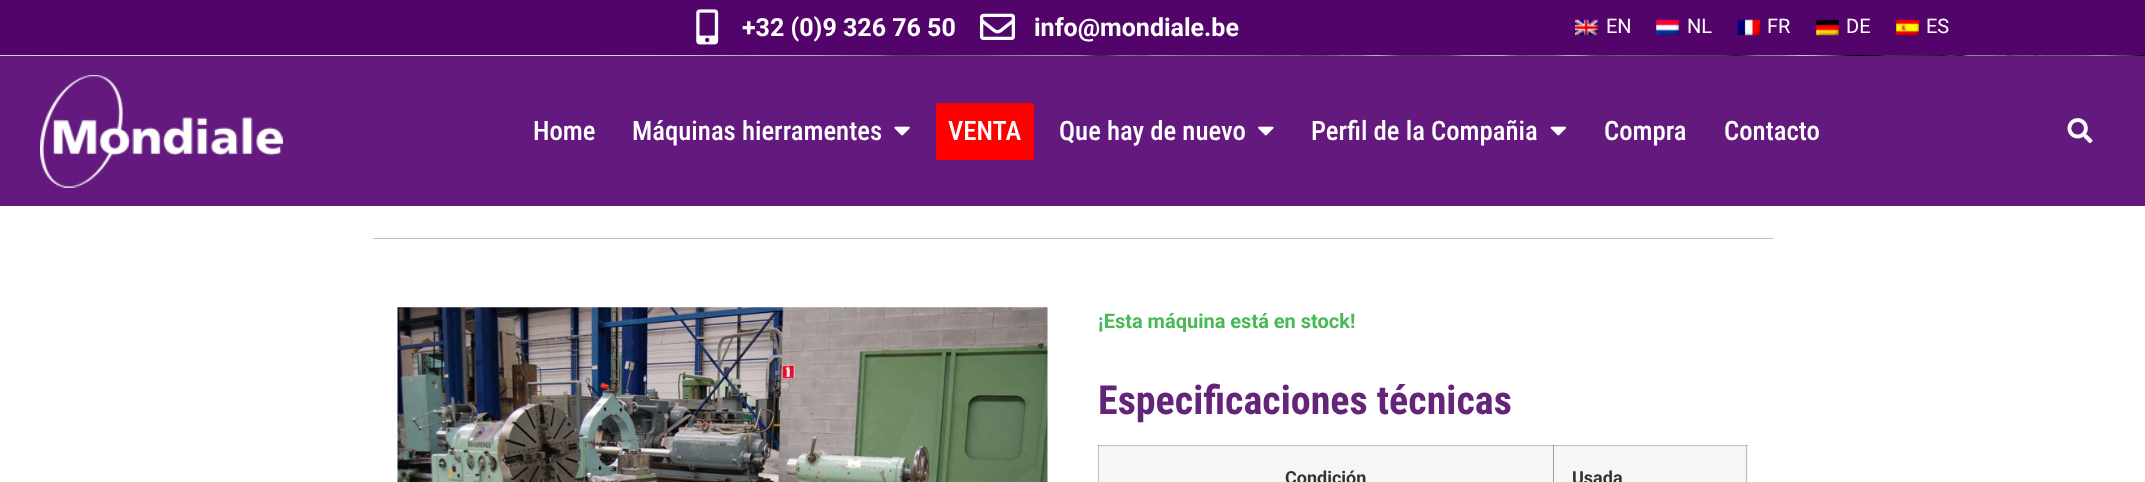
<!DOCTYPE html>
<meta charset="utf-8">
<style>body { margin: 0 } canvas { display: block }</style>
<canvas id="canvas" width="2145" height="482"></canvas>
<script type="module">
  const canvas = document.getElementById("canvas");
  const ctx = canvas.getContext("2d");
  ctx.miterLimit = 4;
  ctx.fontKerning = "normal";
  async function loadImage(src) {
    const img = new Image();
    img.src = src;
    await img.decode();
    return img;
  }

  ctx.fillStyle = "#ffffff";
  ctx.fillRect(0, 0, 2145, 482);
  ctx.fillStyle = "#c0c0c0";
  ctx.fillRect(1098, 445, 1, 37);
  ctx.fillRect(1098, 445, 650, 1);
  ctx.fillStyle = "#a0a0a0";
  ctx.fillRect(1098, 445, 1, 1);
  ctx.fillStyle = "#53046b";
  ctx.fillRect(0, 0, 2145, 55);
  ctx.drawImage(await loadImage("img1.png"), 696, 9, 23, 36);
  ctx.font = "bold 25px Roboto";
  ctx.fillStyle = "#ffffff";
  ctx.fillText("+32 (0)9 326 76 50", 742, 36);
  ctx.drawImage(await loadImage("img2.png"), 980, 13, 35, 27);
  ctx.fillText("info@mondiale.be", 1034, 36);
  ctx.drawImage(await loadImage("img3.png"), 1575, 19, 23, 17);
  ctx.font = "20px Roboto";
  ctx.fillText("EN", 1606, 33);
  ctx.drawImage(await loadImage("img4.png"), 1656, 19, 23, 17);
  ctx.fillText("NL", 1687, 33);
  ctx.drawImage(await loadImage("img5.png"), 1737, 19, 23, 17);
  ctx.fillText("FR", 1767, 33);
  ctx.drawImage(await loadImage("img6.png"), 1816, 19, 23, 17);
  ctx.fillText("DE", 1846, 33);
  ctx.drawImage(await loadImage("img7.png"), 1896, 19, 23, 17);
  ctx.fillText("ES", 1926, 33);
  ctx.fillStyle = "#63197d";
  ctx.fillRect(0, 56, 2145, 150);
  ctx.drawImage(await loadImage("img8.png"), 40, 75, 243, 113);
  ctx.font = "500 26.75px Roboto Condensed";
  ctx.fillStyle = "#ffffff";
  ctx.fillText("Home", 533, 140);
  ctx.fillText("Máquinas hierramentes", 632, 140);
  ctx.drawImage(await loadImage("img9.png"), 894, 126, 16, 10);
  ctx.fillStyle = "#ff0000";
  ctx.beginPath();
  ctx.roundRect(936, 103, 98, 57, 2.5);
  ctx.fill();
  ctx.fillStyle = "#ffffff";
  ctx.fillText("VENTA", 948, 140);
  ctx.fillText("Que hay de nuevo", 1059, 140);
  ctx.drawImage(await loadImage("img10.png"), 1258, 126, 16, 10);
  ctx.fillText("Perfil de la Compañia", 1311, 140);
  ctx.drawImage(await loadImage("img11.png"), 1550, 126, 16, 10);
  ctx.fillText("Compra", 1604, 140);
  ctx.fillText("Contacto", 1724, 140);
  ctx.drawImage(await loadImage("img12.png"), 2067, 118, 26, 26);
  ctx.drawImage(await loadImage("img13.png"), 0, 55, 2145, 1);
  ctx.fillStyle = "#c4bfbf";
  ctx.fillRect(373, 238, 1400, 1);
  ctx.drawImage(await loadImage("img14.png"), 397, 307, 651, 175);
  ctx.font = "bold 20px Roboto";
  ctx.fillStyle = "#48b954";
  ctx.fillText("¡Esta máquina está en stock!", 1098, 328);
  ctx.font = "bold 40px Roboto Condensed";
  ctx.fillStyle = "#63247a";
  ctx.fillText("Especificaciones técnicas", 1098, 414);
  ctx.fillStyle = "#f6f6f6";
  ctx.fillRect(1099, 446, 454, 36);
  ctx.font = "bold 18px Roboto";
  ctx.fillStyle = "#333333";
  ctx.fillText("Condición", 1285, 484);
  ctx.fillStyle = "#f6f6f6";
  ctx.fillRect(1554, 446, 194, 36);
  ctx.fillStyle = "#9e9e9e";
  ctx.fillRect(1553, 446, 1, 36);
  ctx.fillStyle = "#bbbbbb";
  ctx.fillRect(1746, 446, 1, 36);
  ctx.fillStyle = "#888888";
  ctx.fillRect(1553, 445, 1, 1);
  ctx.fillStyle = "#a0a0a0";
  ctx.fillRect(1746, 445, 1, 1);
  ctx.fillStyle = "#333333";
  ctx.fillText("Usada", 1572, 484);
</script>
